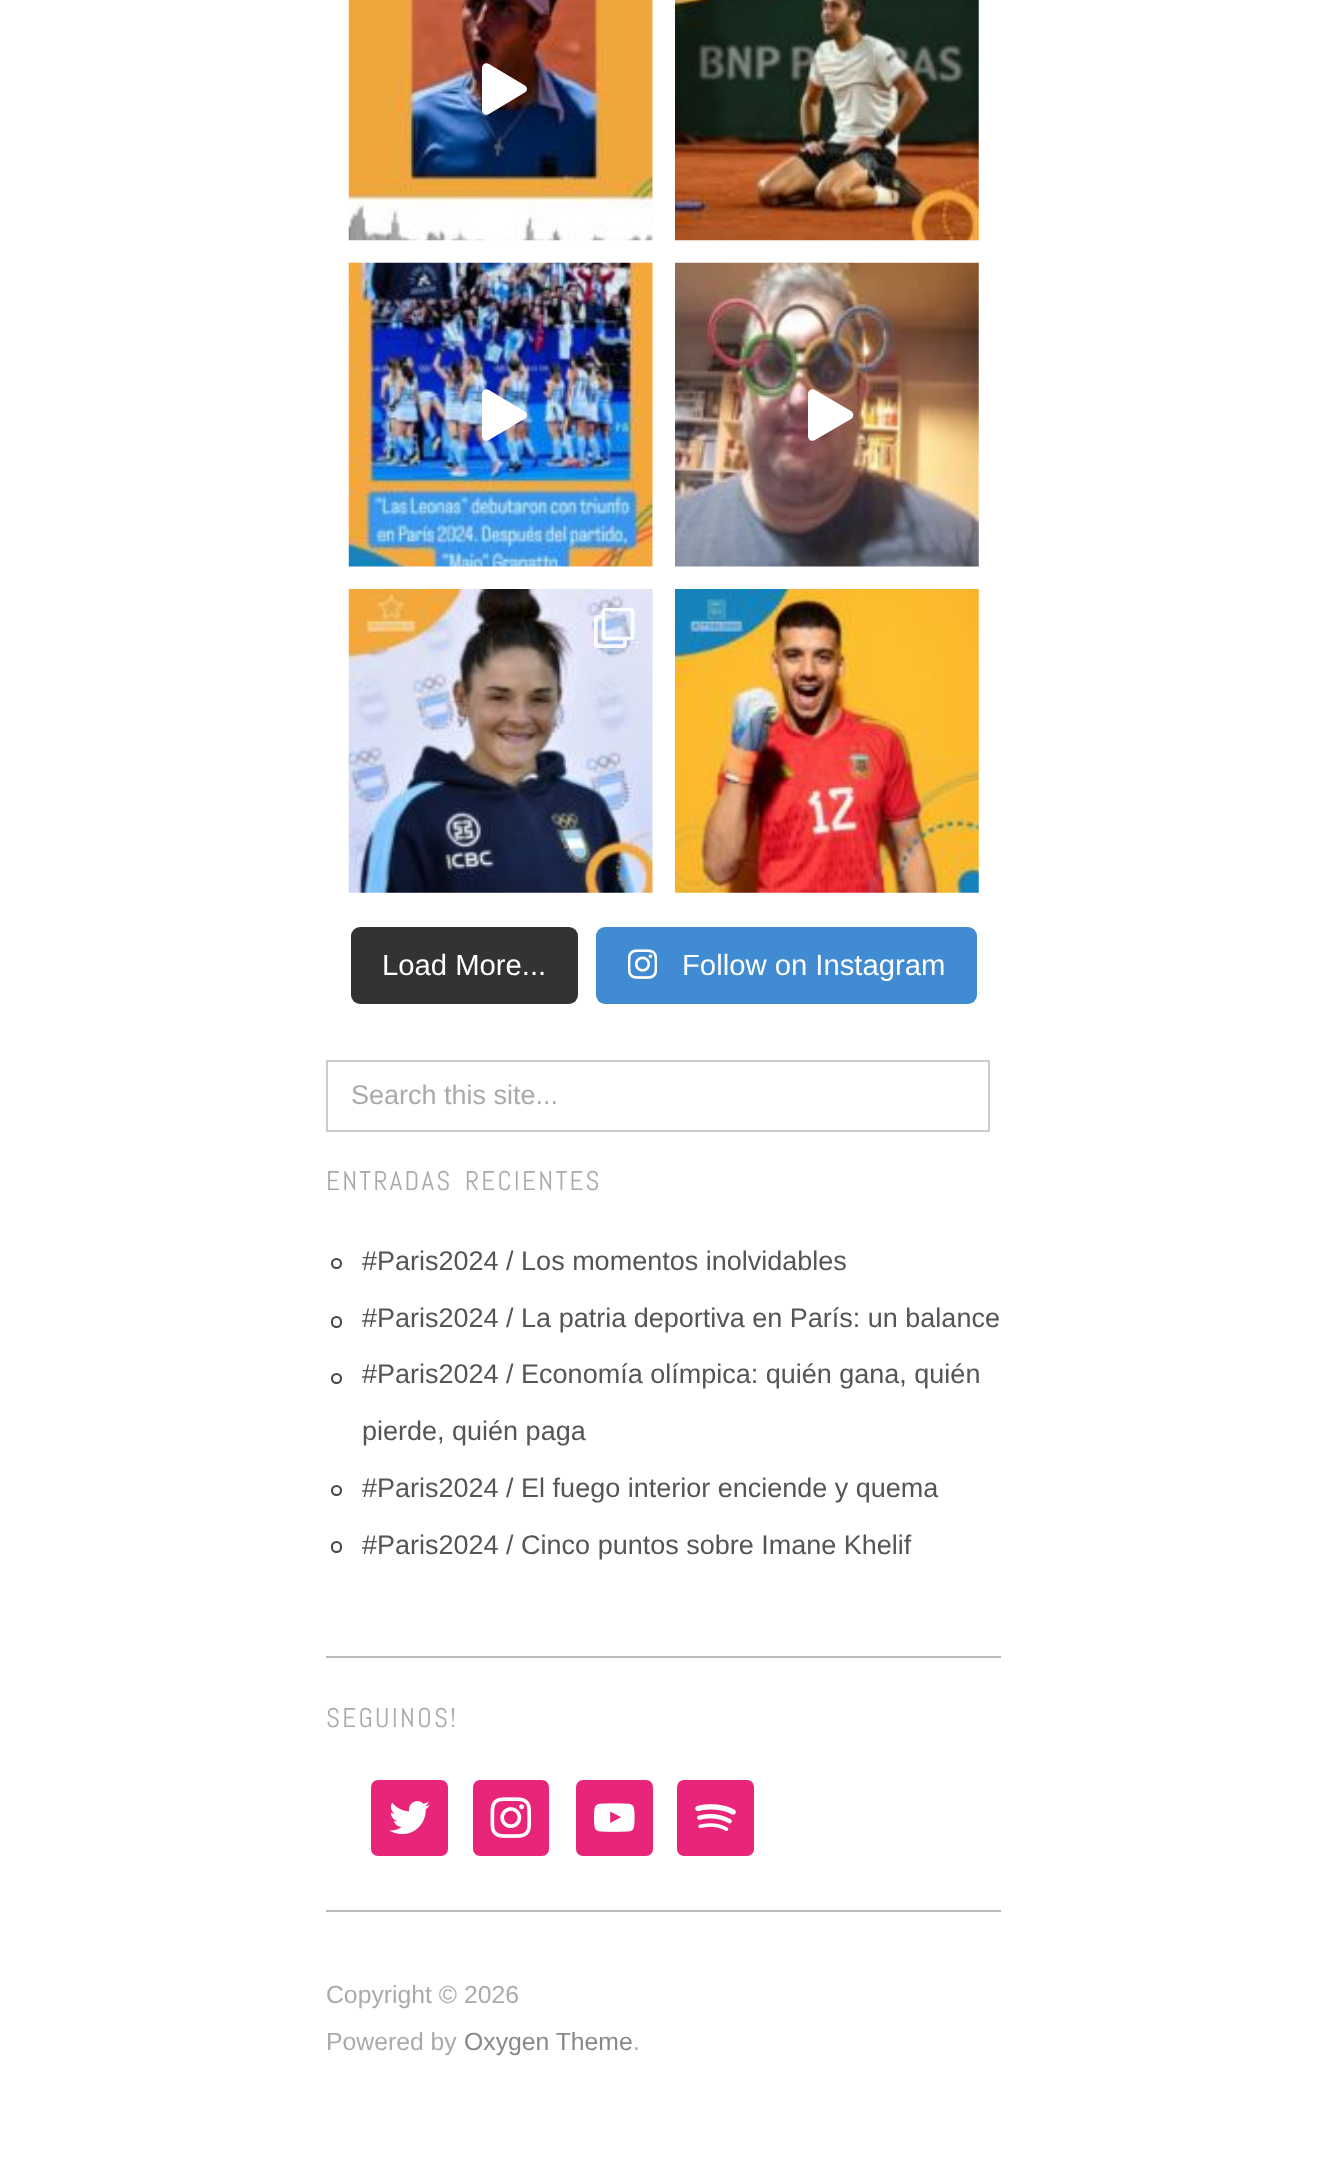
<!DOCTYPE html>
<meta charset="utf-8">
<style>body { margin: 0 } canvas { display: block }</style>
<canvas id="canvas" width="1327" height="2177"></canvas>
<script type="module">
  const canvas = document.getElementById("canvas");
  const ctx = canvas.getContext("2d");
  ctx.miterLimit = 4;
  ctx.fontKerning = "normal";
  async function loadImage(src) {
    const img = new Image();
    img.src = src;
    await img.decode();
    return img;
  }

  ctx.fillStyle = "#ffffff";
  ctx.fillRect(0, 0, 1327, 2177);
  ctx.drawImage(await loadImage("img1.png"), 348, 0, 305, 241);
  ctx.beginPath();
  ctx.moveTo(524, 85);
  ctx.lineTo(489, 64);
  ctx.bezierCurveTo(486, 62, 482, 64, 482, 68);
  ctx.lineTo(482, 110);
  ctx.bezierCurveTo(482, 114, 486, 116, 489, 114);
  ctx.lineTo(524, 93);
  ctx.bezierCurveTo(528, 91, 528, 87, 524, 85);
  ctx.closePath();
  ctx.fill();
  ctx.drawImage(await loadImage("img2.png"), 675, 0, 304, 241);
  ctx.drawImage(await loadImage("img3.png"), 348, 262, 305, 305);
  ctx.beginPath();
  ctx.moveTo(524, 411);
  ctx.lineTo(489, 390);
  ctx.bezierCurveTo(486, 388, 482, 390, 482, 394);
  ctx.lineTo(482, 436);
  ctx.bezierCurveTo(482, 440, 486, 442, 489, 440);
  ctx.lineTo(524, 419);
  ctx.bezierCurveTo(528, 417, 528, 413, 524, 411);
  ctx.closePath();
  ctx.fill();
  ctx.drawImage(await loadImage("img4.png"), 675, 262, 304, 305);
  ctx.beginPath();
  ctx.moveTo(851, 411);
  ctx.lineTo(815, 390);
  ctx.bezierCurveTo(812, 388, 808, 390, 808, 394);
  ctx.lineTo(808, 436);
  ctx.bezierCurveTo(808, 440, 812, 442, 815, 440);
  ctx.lineTo(851, 419);
  ctx.bezierCurveTo(854, 417, 854, 413, 851, 411);
  ctx.closePath();
  ctx.fill();
  ctx.drawImage(await loadImage("img5.png"), 348, 589, 305, 304);
  ctx.drawImage(await loadImage("img6.png"), 594, 608, 41, 40);
  ctx.drawImage(await loadImage("img7.png"), 675, 589, 304, 304);
  ctx.fillStyle = "#333333";
  ctx.beginPath();
  ctx.roundRect(351, 927, 227, 77, 9);
  ctx.fill();
  ctx.font = "29.25px Liberation Sans";
  ctx.fillStyle = "#ffffff";
  ctx.fillText("Load More...", 382, 975);
  ctx.fillStyle = "#408bd1";
  ctx.beginPath();
  ctx.roundRect(596, 927, 381, 77, 9);
  ctx.fill();
  ctx.drawImage(await loadImage("img8.png"), 628, 949, 29, 30);
  ctx.fillStyle = "#ffffff";
  ctx.fillText("Follow on Instagram", 682, 975);
  ctx.strokeStyle = "#cccccc";
  ctx.lineWidth = 2;
  ctx.strokeRect(327, 1061, 662, 70);
  ctx.font = "27px Liberation Sans";
  ctx.fillStyle = "#aaaaaa";
  ctx.fillText("Search this site...", 351, 1104);
  ctx.letterSpacing = "2.25px";
  ctx.wordSpacing = "4px";
  ctx.font = "27px Abel";
  ctx.fillText("ENTRADAS RECIENTES", 326, 1190);
  ctx.beginPath();
  ctx.arc(336.5, 1263.5, 4.5, 0, Math.PI * 2);
  ctx.strokeStyle = "#444444";
  ctx.stroke();
  ctx.letterSpacing = "0px";
  ctx.wordSpacing = "0px";
  ctx.font = "27px Liberation Sans";
  ctx.fillStyle = "#555555";
  ctx.fillText("#Paris2024 / Los momentos inolvidables", 362, 1270);
  ctx.beginPath();
  ctx.roundRect(332, 1317, 9, 10, 4.5);
  ctx.stroke();
  ctx.fillText("#Paris2024 / La patria deportiva en París: un balance", 362, 1327);
  ctx.beginPath();
  ctx.arc(336.5, 1378.5, 4.5, 0, Math.PI * 2);
  ctx.stroke();
  ctx.fillText("#Paris2024 / Economía olímpica: quién gana, quién", 362, 1383);
  ctx.fillText("pierde, quién paga", 362, 1440);
  ctx.beginPath();
  ctx.arc(336.5, 1490.5, 4.5, 0, Math.PI * 2);
  ctx.stroke();
  ctx.fillText("#Paris2024 / El fuego interior enciende y quema", 362, 1497);
  ctx.beginPath();
  ctx.roundRect(332, 1542, 9, 10, 4.5);
  ctx.stroke();
  ctx.fillText("#Paris2024 / Cinco puntos sobre Imane Khelif", 362, 1554);
  ctx.fillStyle = "#bbbbbb";
  ctx.fillRect(326, 1656, 675, 2);
  ctx.letterSpacing = "2.25px";
  ctx.font = "27px Abel";
  ctx.fillStyle = "#aaaaaa";
  ctx.fillText("SEGUINOS!", 326, 1727);
  ctx.fillStyle = "#e82579";
  ctx.beginPath();
  ctx.roundRect(371, 1780, 77, 76, 7);
  ctx.fill();
  ctx.drawImage(await loadImage("img9.png"), 389, 1801, 41, 34);
  ctx.beginPath();
  ctx.roundRect(473, 1780, 76, 76, 7);
  ctx.fill();
  ctx.drawImage(await loadImage("img10.png"), 490, 1797, 42, 41);
  ctx.beginPath();
  ctx.roundRect(576, 1780, 77, 76, 7);
  ctx.fill();
  ctx.drawImage(await loadImage("img11.png"), 594, 1803, 41, 29);
  ctx.beginPath();
  ctx.roundRect(677, 1780, 77, 76, 7);
  ctx.fill();
  ctx.drawImage(await loadImage("img12.png"), 695, 1804, 41, 27);
  ctx.fillStyle = "#bbbbbb";
  ctx.fillRect(326, 1910, 675, 2);
  ctx.letterSpacing = "0px";
  ctx.font = "24.75px Liberation Sans";
  ctx.fillStyle = "#aaaaaa";
  ctx.fillText("Copyright © 2026", 326, 2003);
  ctx.fillText("Powered by", 326, 2050);
  ctx.fillStyle = "#888888";
  ctx.fillText("Oxygen Theme", 464, 2050);
  ctx.fillStyle = "#aaaaaa";
  ctx.fillText(".", 633, 2050);
</script>
